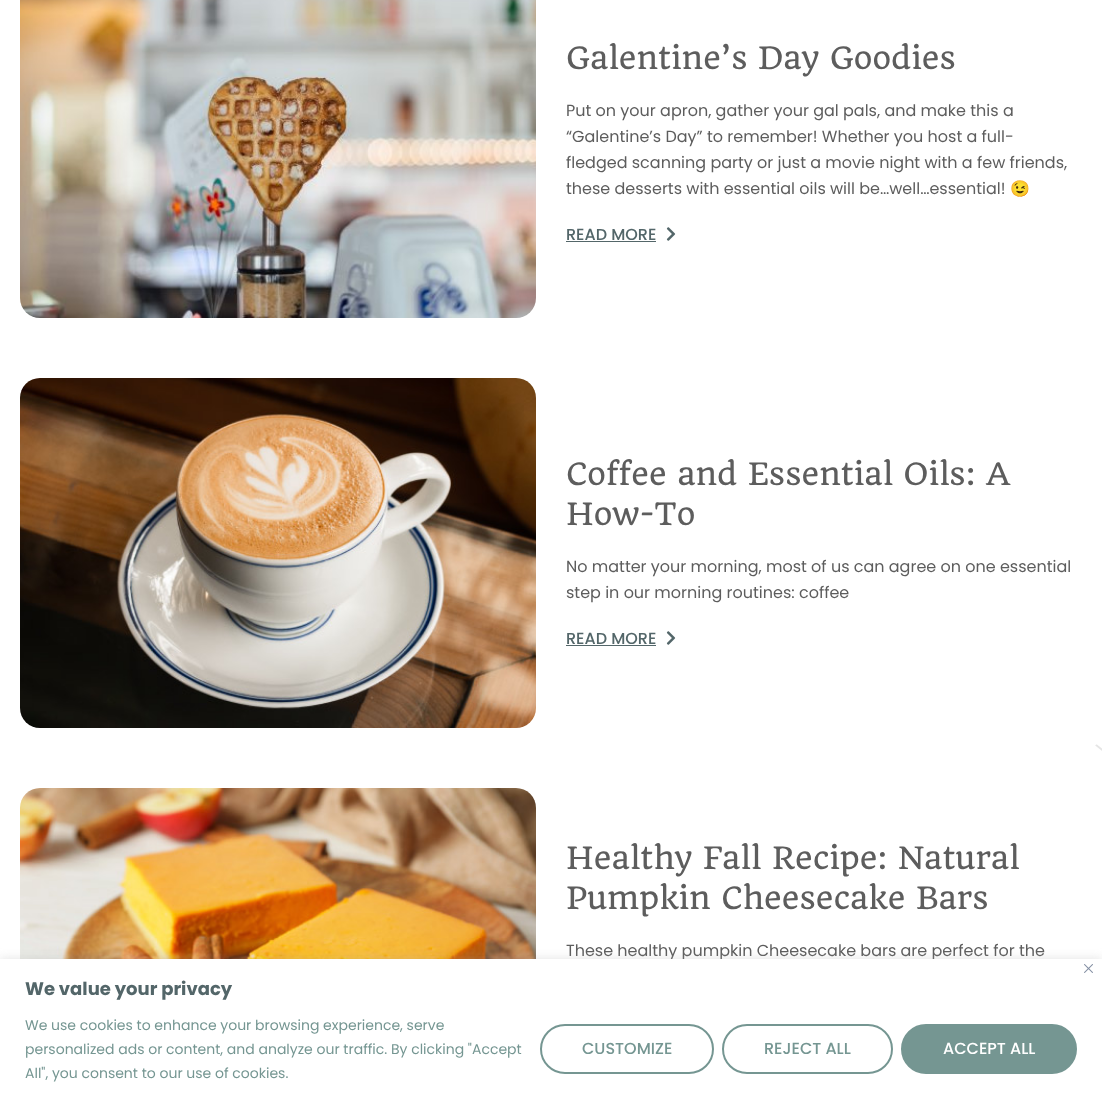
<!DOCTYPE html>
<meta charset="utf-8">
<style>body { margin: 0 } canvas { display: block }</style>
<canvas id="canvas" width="1102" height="1102"></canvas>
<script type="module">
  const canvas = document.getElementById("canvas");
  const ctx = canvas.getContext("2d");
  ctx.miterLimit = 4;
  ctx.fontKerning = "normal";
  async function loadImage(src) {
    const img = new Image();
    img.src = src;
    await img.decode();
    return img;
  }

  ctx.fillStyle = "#ffffff";
  ctx.fillRect(0, 0, 1102, 1102);
  ctx.drawImage(await loadImage("img1.png"), 20, 0, 516, 318);
  ctx.font = "30px Quando";
  ctx.fillStyle = "#5d5d5d";
  ctx.fillText("Galentine’s Day Goodies", 566, 69);
  ctx.font = "16px Poppins";
  ctx.fillText("Put on your apron, gather your gal pals, and make this a", 566, 116);
  ctx.fillText("“Galentine’s Day” to remember! Whether you host a full-", 566, 142);
  ctx.fillText("fledged scanning party or just a movie night with a few friends,", 566, 168);
  ctx.fillText("these desserts with essential oils will be…well…essential!", 566, 194);
  ctx.font = "16px Noto Color Emoji";
  ctx.fillText("😉", 1010, 194);
  ctx.font = "500 16px Poppins";
  ctx.fillStyle = "#536669";
  ctx.fillText("READ MORE", 566, 240);
  ctx.fillRect(566, 241, 90, 1);
  ctx.drawImage(await loadImage("img2.png"), 666, 227, 10, 14);
  ctx.drawImage(await loadImage("img5.png"), 1094, 744, 8, 7);
  ctx.fillStyle = "#ffffff";
  ctx.beginPath();
  ctx.roundRect(0, 358, 1102, 390, 15);
  ctx.fill();
  ctx.drawImage(await loadImage("img3.png"), 20, 378, 516, 350);
  ctx.font = "30px Quando";
  ctx.fillStyle = "#5d5d5d";
  ctx.fillText("Coffee and Essential Oils: A", 566, 485);
  ctx.fillText("How-To", 566, 525);
  ctx.font = "16px Poppins";
  ctx.fillText("No matter your morning, most of us can agree on one essential", 566, 572);
  ctx.fillText("step in our morning routines: coffee", 566, 598);
  ctx.font = "500 16px Poppins";
  ctx.fillStyle = "#536669";
  ctx.fillText("READ MORE", 566, 644);
  ctx.fillRect(566, 645, 90, 1);
  ctx.drawImage(await loadImage("img2.png"), 666, 631, 10, 14);
  ctx.drawImage(await loadImage("img4.png"), 20, 788, 516, 171);
  ctx.font = "30px Quando";
  ctx.fillStyle = "#5d5d5d";
  ctx.fillText("Healthy Fall Recipe: Natural", 566, 869);
  ctx.fillText("Pumpkin Cheesecake Bars", 566, 909);
  ctx.font = "16px Poppins";
  ctx.fillText("These healthy pumpkin Cheesecake bars are perfect for the", 566, 956);
  ctx.fillStyle = "rgba(172, 171, 171, 0.3)";
  ctx.filter = "blur(5px)";
  ctx.beginPath();
  ctx.rect(0, 958, 1102, 143);
  ctx.fill();
  ctx.filter = "none";
  ctx.fillStyle = "#ffffff";
  ctx.fillRect(0, 959, 1102, 143);
  ctx.drawImage(await loadImage("img6.png"), 1084, 964, 9, 9);
  ctx.font = "bold 18px Poppins";
  ctx.fillStyle = "#536669";
  ctx.fillText("We value your privacy", 25, 995);
  ctx.font = "14px Poppins";
  ctx.fillStyle = "#759692";
  ctx.fillText("We use cookies to enhance your browsing experience, serve", 25, 1030);
  ctx.fillText("personalized ads or content, and analyze our traffic. By clicking \"Accept", 25, 1054);
  ctx.fillText("All\", you consent to our use of cookies.", 25, 1078);
  ctx.beginPath();
  ctx.roundRect(541, 1025, 172, 48, 24);
  ctx.strokeStyle = "#759692";
  ctx.lineWidth = 2;
  ctx.stroke();
  ctx.font = "500 16px Poppins";
  ctx.fillText("CUSTOMIZE", 582, 1054);
  ctx.beginPath();
  ctx.roundRect(723, 1025, 169, 48, 24);
  ctx.stroke();
  ctx.fillText("REJECT ALL", 764, 1054);
  ctx.beginPath();
  ctx.roundRect(902, 1025, 174, 48, 24);
  ctx.fill();
  ctx.stroke();
  ctx.fillStyle = "#ffffff";
  ctx.fillText("ACCEPT ALL", 943, 1054);
</script>
